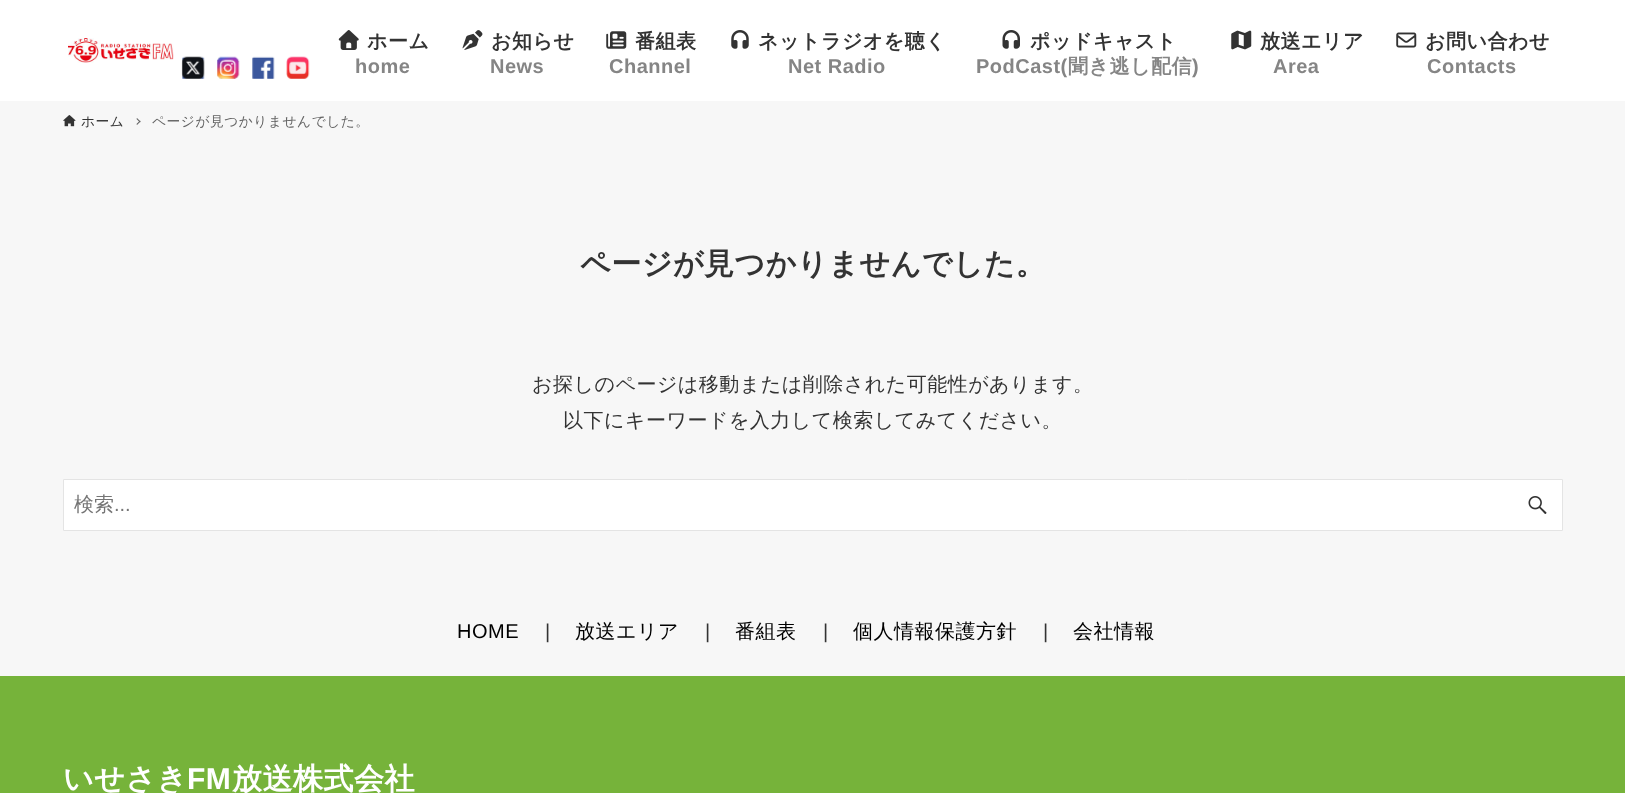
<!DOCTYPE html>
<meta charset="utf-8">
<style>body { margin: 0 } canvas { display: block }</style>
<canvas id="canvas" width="1625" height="793"></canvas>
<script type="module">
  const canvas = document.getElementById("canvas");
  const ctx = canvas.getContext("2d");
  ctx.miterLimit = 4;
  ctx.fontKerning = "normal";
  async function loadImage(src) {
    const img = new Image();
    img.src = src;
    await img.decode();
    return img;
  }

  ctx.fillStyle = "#f7f7f7";
  ctx.fillRect(0, 0, 1625, 793);
  ctx.fillStyle = "#ffffff";
  ctx.fillRect(0, 0, 1625, 101);
  ctx.drawImage(await loadImage("img1.png"), 68, 38, 106, 25);
  ctx.drawImage(await loadImage("img2.png"), 181, 56, 24, 23);
  ctx.drawImage(await loadImage("img3.png"), 217, 56, 23, 23);
  ctx.drawImage(await loadImage("img4.png"), 252, 56, 23, 23);
  ctx.drawImage(await loadImage("img5.png"), 286, 56, 24, 23);
  ctx.drawImage(await loadImage("img6.png"), 338, 30, 21, 20);
  ctx.letterSpacing = "0.5px";
  ctx.font = "bold 20px WenQuanYi Zen Hei";
  ctx.fillStyle = "#333333";
  ctx.fillText("ホーム", 367, 48);
  ctx.font = "bold 20px Liberation Sans";
  ctx.fillStyle = "#858585";
  ctx.fillText("home", 355, 73);
  ctx.drawImage(await loadImage("img7.png"), 462, 30, 21, 20);
  ctx.font = "bold 20px WenQuanYi Zen Hei";
  ctx.fillStyle = "#333333";
  ctx.fillText("お知らせ", 491, 48);
  ctx.font = "bold 20px Liberation Sans";
  ctx.fillStyle = "#858585";
  ctx.fillText("News", 490, 73);
  ctx.drawImage(await loadImage("img8.png"), 606, 31, 21, 18);
  ctx.font = "bold 20px WenQuanYi Zen Hei";
  ctx.fillStyle = "#333333";
  ctx.fillText("番組表", 635, 48);
  ctx.font = "bold 20px Liberation Sans";
  ctx.fillStyle = "#858585";
  ctx.fillText("Channel", 609, 73);
  ctx.drawImage(await loadImage("img9.png"), 731, 30, 18, 19);
  ctx.font = "bold 20px WenQuanYi Zen Hei";
  ctx.fillStyle = "#333333";
  ctx.fillText("ネットラジオを聴く", 758, 48);
  ctx.font = "bold 20px Liberation Sans";
  ctx.fillStyle = "#858585";
  ctx.fillText("Net Radio", 788, 73);
  ctx.drawImage(await loadImage("img10.png"), 1002, 30, 18, 19);
  ctx.font = "bold 20px WenQuanYi Zen Hei";
  ctx.fillStyle = "#333333";
  ctx.fillText("ポッドキャスト", 1030, 48);
  ctx.font = "bold 20px Liberation Sans";
  ctx.fillStyle = "#858585";
  ctx.fillText("PodCast(", 976, 73);
  ctx.font = "bold 20px WenQuanYi Zen Hei";
  ctx.fillText("聞き逃し配信", 1068, 73);
  ctx.font = "bold 20px Liberation Sans";
  ctx.fillText(")", 1192, 73);
  ctx.drawImage(await loadImage("img11.png"), 1231, 30, 21, 20);
  ctx.font = "bold 20px WenQuanYi Zen Hei";
  ctx.fillStyle = "#333333";
  ctx.fillText("放送エリア", 1260, 48);
  ctx.font = "bold 20px Liberation Sans";
  ctx.fillStyle = "#858585";
  ctx.fillText("Area", 1273, 73);
  ctx.drawImage(await loadImage("img12.png"), 1396, 32, 21, 16);
  ctx.font = "bold 20px WenQuanYi Zen Hei";
  ctx.fillStyle = "#333333";
  ctx.fillText("お問い合わせ", 1425, 48);
  ctx.font = "bold 20px Liberation Sans";
  ctx.fillStyle = "#858585";
  ctx.fillText("Contacts", 1427, 73);
  ctx.drawImage(await loadImage("img13.png"), 63, 115, 13, 12);
  ctx.font = "500 13.75px WenQuanYi Zen Hei";
  ctx.fillStyle = "#333333";
  ctx.fillText("ホーム", 81, 126);
  ctx.fillStyle = "#646464";
  ctx.beginPath();
  ctx.moveTo(137, 118);
  ctx.lineTo(140.5, 121.5);
  ctx.lineTo(140, 122.5);
  ctx.lineTo(136.5, 119);
  ctx.closePath();
  ctx.fill();
  ctx.beginPath();
  ctx.moveTo(140, 120.5);
  ctx.lineTo(140.5, 121.5);
  ctx.lineTo(137, 125);
  ctx.lineTo(136.5, 124);
  ctx.closePath();
  ctx.fill();
  ctx.fillText("ページが見つかりませんでした。", 152, 126);
  ctx.font = "bold 30px WenQuanYi Zen Hei";
  ctx.fillStyle = "#333333";
  ctx.fillText("ページが見つかりませんでした。", 580, 274);
  ctx.font = "500 20px WenQuanYi Zen Hei";
  ctx.fillText("お探しのページは移動または削除された可能性があります。", 532, 391);
  ctx.fillText("以下にキーワードを入力して検索してみてください。", 563, 427);
  ctx.fillStyle = "#ffffff";
  ctx.beginPath();
  ctx.rect(63.5, 479.5, 1499, 51);
  ctx.fill();
  ctx.strokeStyle = "#e4e4e4";
  ctx.stroke();
  ctx.letterSpacing = "0px";
  ctx.fillStyle = "#757575";
  ctx.fillText("検索", 74, 511);
  ctx.font = "20px Liberation Sans";
  ctx.fillText("...", 114, 511);
  ctx.drawImage(await loadImage("img14.png"), 1528, 496, 19, 18);
  ctx.letterSpacing = "0.5px";
  ctx.fillStyle = "#000000";
  ctx.fillText("HOME", 457, 638);
  ctx.fillStyle = "#333333";
  ctx.fillText("|", 545, 638);
  ctx.font = "500 20px WenQuanYi Zen Hei";
  ctx.fillStyle = "#000000";
  ctx.fillText("放送エリア", 575, 638);
  ctx.font = "20px Liberation Sans";
  ctx.fillStyle = "#333333";
  ctx.fillText("|", 705, 638);
  ctx.font = "500 20px WenQuanYi Zen Hei";
  ctx.fillStyle = "#000000";
  ctx.fillText("番組表", 735, 638);
  ctx.font = "20px Liberation Sans";
  ctx.fillStyle = "#333333";
  ctx.fillText("|", 823, 638);
  ctx.font = "500 20px WenQuanYi Zen Hei";
  ctx.fillStyle = "#000000";
  ctx.fillText("個人情報保護方針", 853, 638);
  ctx.font = "20px Liberation Sans";
  ctx.fillStyle = "#333333";
  ctx.fillText("|", 1043, 638);
  ctx.font = "500 20px WenQuanYi Zen Hei";
  ctx.fillStyle = "#000000";
  ctx.fillText("会社情報", 1073, 638);
  ctx.fillStyle = "#76b33a";
  ctx.fillRect(0, 676, 1625, 117);
  ctx.font = "bold 30px WenQuanYi Zen Hei";
  ctx.fillStyle = "#ffffff";
  ctx.fillText("いせさき", 63, 789);
  ctx.font = "bold 30px Liberation Sans";
  ctx.fillText("FM", 187, 789);
  ctx.font = "bold 30px WenQuanYi Zen Hei";
  ctx.fillText("放送株式会社", 232, 789);
</script>
